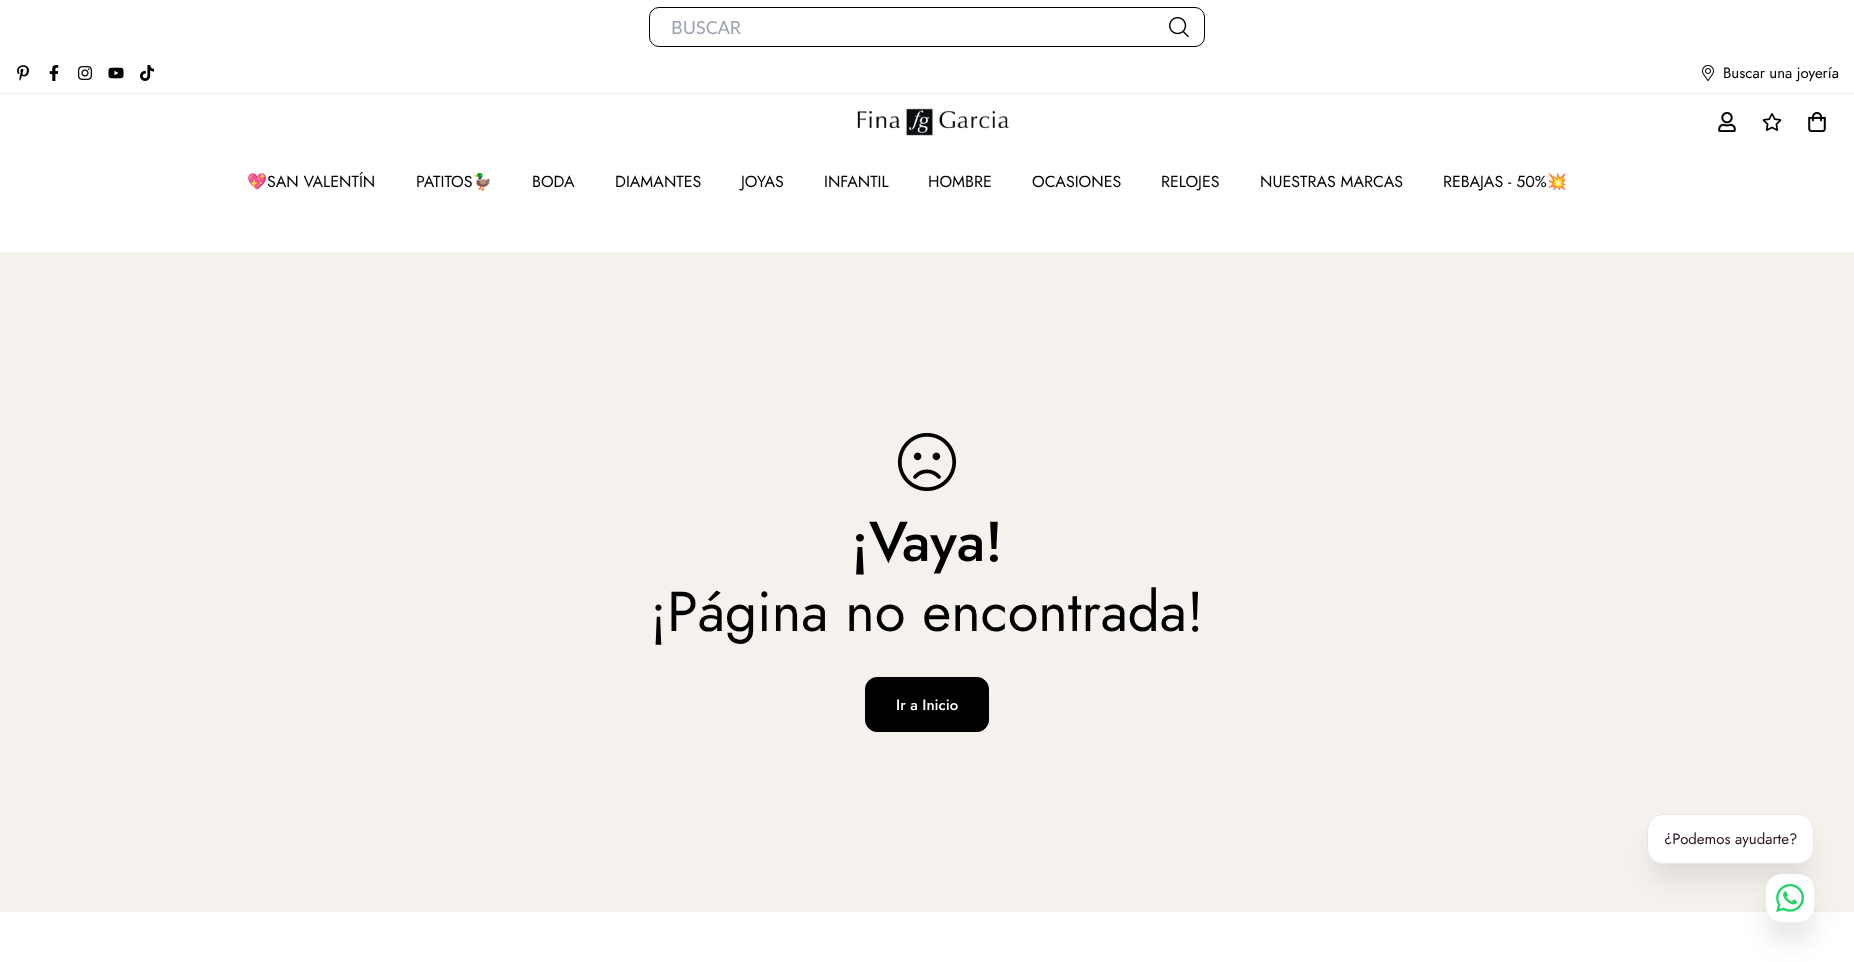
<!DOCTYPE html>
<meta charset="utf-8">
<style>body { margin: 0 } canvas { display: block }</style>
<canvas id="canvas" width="1854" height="962"></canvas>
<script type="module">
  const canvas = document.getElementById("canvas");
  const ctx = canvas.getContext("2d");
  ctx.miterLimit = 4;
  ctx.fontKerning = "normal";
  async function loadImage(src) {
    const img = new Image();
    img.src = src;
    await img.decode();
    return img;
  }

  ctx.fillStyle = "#ffffff";
  ctx.fillRect(0, 0, 1854, 962);
  ctx.beginPath();
  ctx.roundRect(649.5, 7.5, 555, 39, 9.5);
  ctx.strokeStyle = "#000000";
  ctx.stroke();
  ctx.font = "18px Lato";
  ctx.fillStyle = "#9ca3af";
  ctx.fillText("BUSCAR", 671, 34);
  ctx.drawImage(await loadImage("img1.png"), 1169, 17, 20, 20);
  ctx.fillStyle = "#ebebeb";
  ctx.fillRect(0, 93, 1854, 1);
  ctx.drawImage(await loadImage("img2.png"), 17, 65, 12, 16);
  ctx.drawImage(await loadImage("img3.png"), 49, 65, 10, 16);
  ctx.drawImage(await loadImage("img4.png"), 78, 66, 14, 14);
  ctx.drawImage(await loadImage("img5.png"), 108, 67, 16, 12);
  ctx.drawImage(await loadImage("img6.png"), 140, 65, 14, 16);
  ctx.drawImage(await loadImage("img7.png"), 1702, 65, 12, 16);
  ctx.font = "15px Jost";
  ctx.fillStyle = "#000000";
  ctx.fillText("Buscar una joyería", 1723, 78);
  ctx.drawImage(await loadImage("img8.png"), 857, 108, 153, 28);
  ctx.drawImage(await loadImage("img9.png"), 1718, 112, 18, 20);
  ctx.drawImage(await loadImage("img10.png"), 1762, 113, 20, 18);
  ctx.drawImage(await loadImage("img11.png"), 1808, 112, 18, 20);
  ctx.font = "16px Noto Color Emoji";
  ctx.fillText("💖", 247, 187);
  ctx.font = "16px Jost";
  ctx.fillText("SAN VALENTÍN", 267, 187);
  ctx.fillText("PATITOS", 416, 187);
  ctx.font = "16px Noto Color Emoji";
  ctx.fillText("🦆", 472, 187);
  ctx.font = "16px Jost";
  ctx.fillText("BODA", 532, 187);
  ctx.fillText("DIAMANTES", 615, 187);
  ctx.fillText("JOYAS", 741, 187);
  ctx.fillText("INFANTIL", 824, 187);
  ctx.fillText("HOMBRE", 928, 187);
  ctx.fillText("OCASIONES", 1032, 187);
  ctx.fillText("RELOJES", 1161, 187);
  ctx.fillText("NUESTRAS MARCAS", 1260, 187);
  ctx.fillText("REBAJAS - 50%", 1443, 187);
  ctx.font = "16px Noto Color Emoji";
  ctx.fillText("💥", 1547, 187);
  ctx.fillStyle = "#f5f1ed";
  ctx.fillRect(0, 252, 1854, 660);
  ctx.drawImage(await loadImage("img12.png"), 897, 432, 60, 60);
  ctx.font = "500 56.25px Jost";
  ctx.fillStyle = "#000000";
  ctx.fillText("¡Vaya!", 851, 561);
  ctx.font = "56.25px Jost";
  ctx.fillText("¡Página no encontrada!", 650, 631);
  ctx.beginPath();
  ctx.roundRect(865.5, 677.5, 123, 54, 11.5);
  ctx.fill();
  ctx.stroke();
  ctx.font = "500 15px Jost";
  ctx.fillStyle = "#ffffff";
  ctx.fillText("Ir a Inicio", 896, 710);
  ctx.fillStyle = "rgba(18, 18, 23, 0.1)";
  ctx.filter = "blur(12.5px)";
  ctx.beginPath();
  ctx.roundRect(1652, 839, 157, 40, 11);
  ctx.fill();
  ctx.filter = "none";
  ctx.fillStyle = "#ffffff";
  ctx.beginPath();
  ctx.roundRect(1647, 814, 167, 50, 16);
  ctx.fill();
  ctx.beginPath();
  ctx.roundRect(1647.5, 814.5, 166, 49, 15.5);
  ctx.strokeStyle = "rgba(0, 0, 0, 0.1)";
  ctx.stroke();
  ctx.font = "15px Jost";
  ctx.fillStyle = "#281222";
  ctx.fillText("¿Podemos ayudarte?", 1664, 844);
  ctx.fillStyle = "rgba(18, 18, 23, 0.1)";
  ctx.filter = "blur(12.5px)";
  ctx.beginPath();
  ctx.roundRect(1766, 894, 48, 48, 16);
  ctx.fill();
  ctx.filter = "none";
  ctx.fillStyle = "#ffffff";
  ctx.beginPath();
  ctx.roundRect(1766, 874, 48, 48, 16);
  ctx.fill();
  ctx.drawImage(await loadImage("img13.png"), 1768, 875, 44, 46);
</script>
